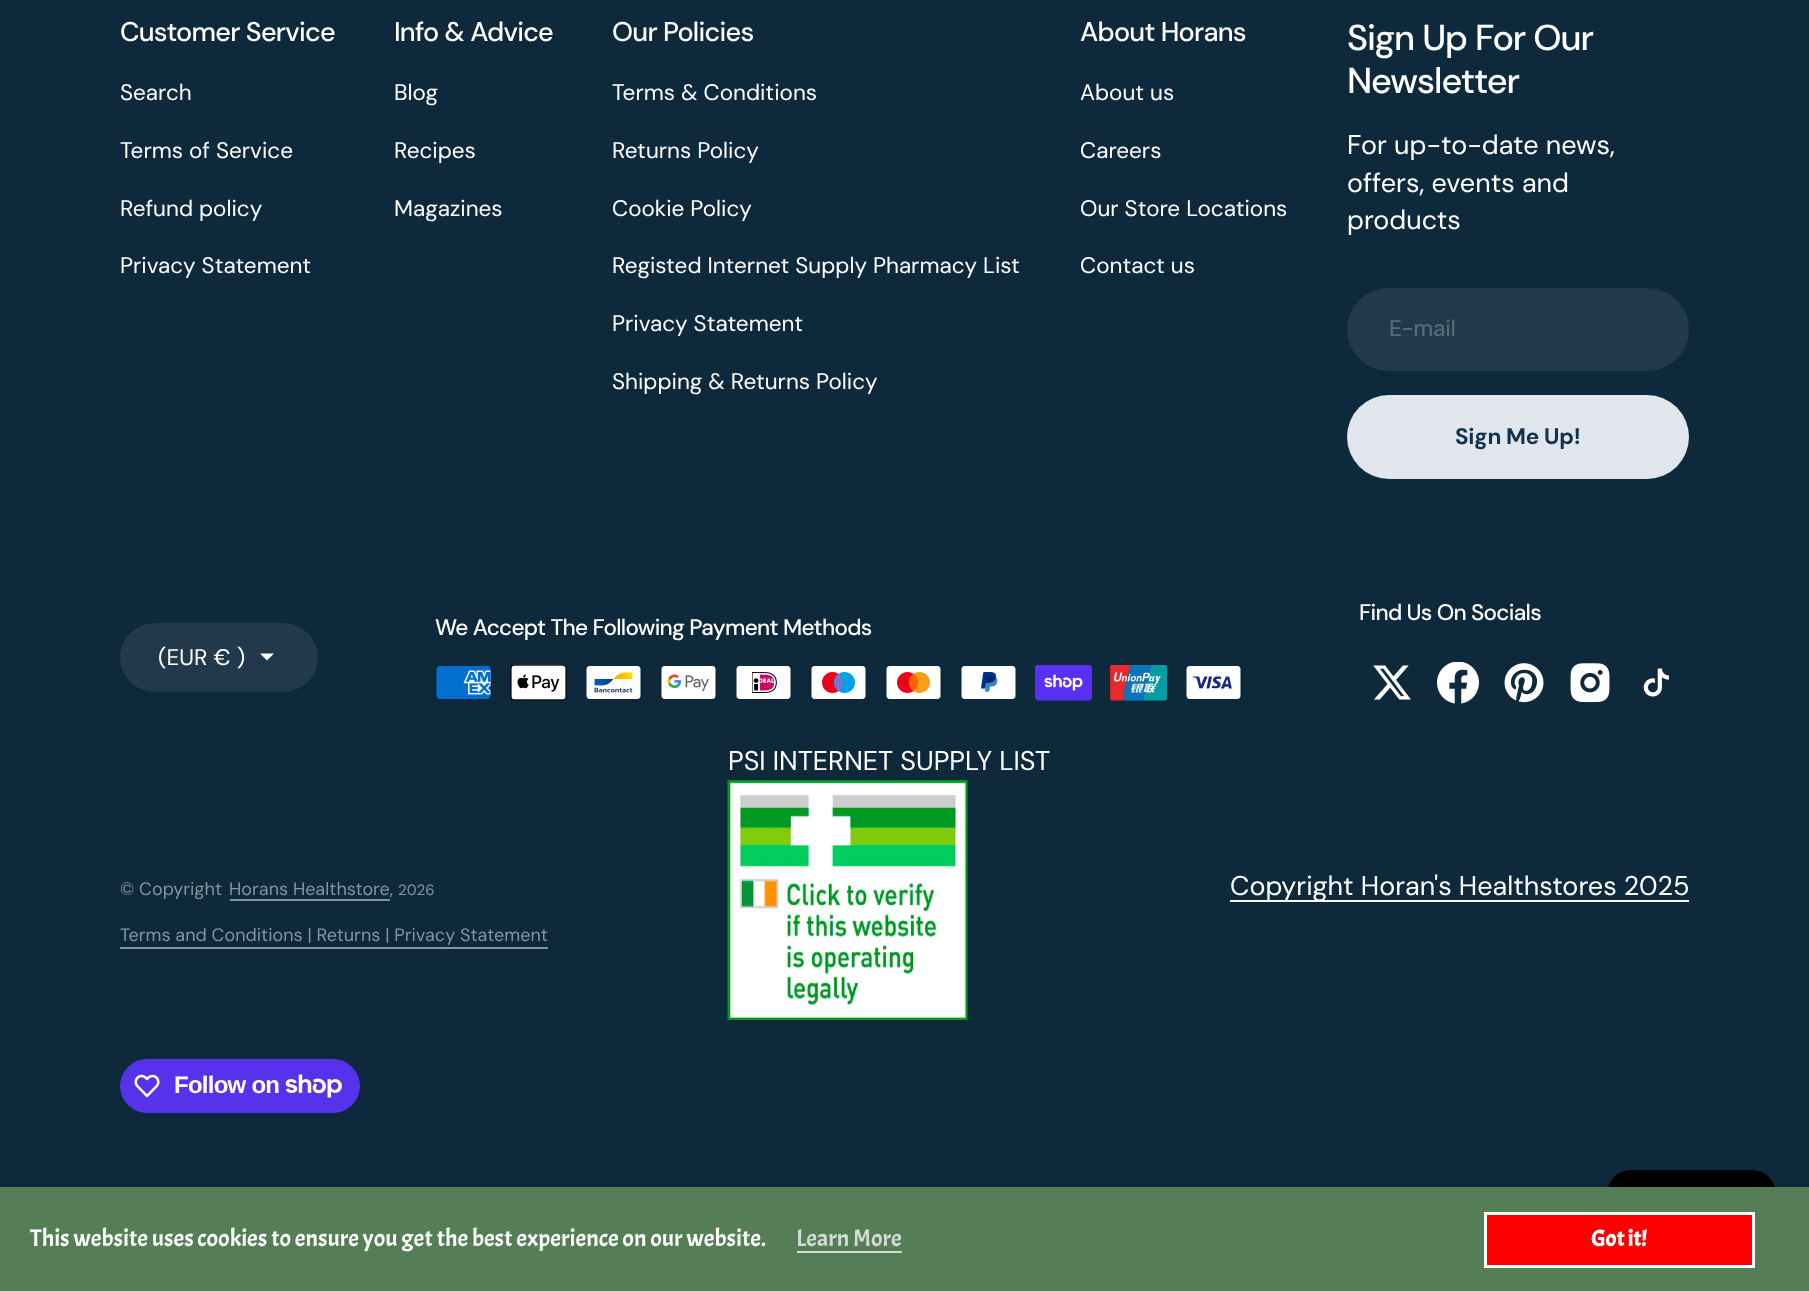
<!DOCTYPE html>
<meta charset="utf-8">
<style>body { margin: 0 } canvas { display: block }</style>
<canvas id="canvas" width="1809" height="1291"></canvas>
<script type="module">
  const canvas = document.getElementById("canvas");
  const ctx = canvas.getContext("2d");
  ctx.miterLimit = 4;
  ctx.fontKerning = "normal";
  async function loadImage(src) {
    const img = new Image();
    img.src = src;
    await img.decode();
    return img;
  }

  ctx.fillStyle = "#0e283c";
  ctx.fillRect(0, 0, 1809, 1291);
  ctx.letterSpacing = "-0.75px";
  ctx.font = "500 27px DM Sans";
  ctx.fillStyle = "#ffffff";
  ctx.fillText("Customer Service", 120, 41);
  ctx.letterSpacing = "0px";
  ctx.font = "22.5px 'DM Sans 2'";
  ctx.fillText("Search", 120, 100);
  ctx.fillText("Terms of Service", 120, 158);
  ctx.fillText("Refund policy", 120, 216);
  ctx.fillText("Privacy Statement", 120, 273);
  ctx.letterSpacing = "-0.75px";
  ctx.font = "500 27px DM Sans";
  ctx.fillText("Info & Advice", 394, 41);
  ctx.letterSpacing = "0px";
  ctx.font = "22.5px 'DM Sans 2'";
  ctx.fillText("Blog", 394, 100);
  ctx.fillText("Recipes", 394, 158);
  ctx.fillText("Magazines", 394, 216);
  ctx.letterSpacing = "-0.75px";
  ctx.font = "500 27px DM Sans";
  ctx.fillText("Our Policies", 612, 41);
  ctx.letterSpacing = "0px";
  ctx.font = "22.5px 'DM Sans 2'";
  ctx.fillText("Terms & Conditions", 612, 100);
  ctx.fillText("Returns Policy", 612, 158);
  ctx.fillText("Cookie Policy", 612, 216);
  ctx.fillText("Registed Internet Supply Pharmacy List", 612, 273);
  ctx.fillText("Privacy Statement", 612, 331);
  ctx.fillText("Shipping & Returns Policy", 612, 389);
  ctx.letterSpacing = "-0.75px";
  ctx.font = "500 27px DM Sans";
  ctx.fillText("About Horans", 1080, 41);
  ctx.letterSpacing = "0px";
  ctx.font = "22.5px 'DM Sans 2'";
  ctx.fillText("About us", 1080, 100);
  ctx.fillText("Careers", 1080, 158);
  ctx.fillText("Our Store Locations", 1080, 216);
  ctx.fillText("Contact us", 1080, 273);
  ctx.letterSpacing = "-1.1px";
  ctx.font = "500 36px 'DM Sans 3'";
  ctx.fillText("Sign Up For Our", 1347, 50);
  ctx.fillText("Newsletter", 1347, 93);
  ctx.letterSpacing = "0px";
  ctx.font = "27px DM Sans";
  ctx.fillText("For up-to-date news,", 1347, 154);
  ctx.fillText("offers, events and", 1347, 192);
  ctx.fillText("products", 1347, 229);
  ctx.fillStyle = "#21394b";
  ctx.beginPath();
  ctx.roundRect(1348, 289, 340, 81, 40.5);
  ctx.fill();
  ctx.strokeStyle = "#21394b";
  ctx.lineWidth = 2;
  ctx.stroke();
  ctx.letterSpacing = "-0.5px";
  ctx.font = "500 22.5px 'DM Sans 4'";
  ctx.fillStyle = "#596b78";
  ctx.fillText("E-mail", 1389, 336);
  ctx.fillStyle = "#e1e6ec";
  ctx.beginPath();
  ctx.roundRect(1347, 395, 342, 84, 42);
  ctx.fill();
  ctx.letterSpacing = "-0.25px";
  ctx.font = "bold 22.5px DM Sans";
  ctx.fillStyle = "#11324b";
  ctx.fillText("Sign Me Up!", 1455, 444);
  ctx.letterSpacing = "-0.7px";
  ctx.font = "500 22.5px 'DM Sans 2'";
  ctx.fillStyle = "#ffffff";
  ctx.fillText("Find Us On Socials", 1359, 620);
  ctx.drawImage(await loadImage("img1.png"), 1373, 665, 38, 35);
  ctx.drawImage(await loadImage("img2.png"), 1437, 662, 42, 42);
  ctx.drawImage(await loadImage("img3.png"), 1504, 663, 40, 40);
  ctx.drawImage(await loadImage("img4.png"), 1570, 663, 40, 40);
  ctx.drawImage(await loadImage("img5.png"), 1643, 668, 26, 29);
  ctx.fillText("We Accept The Following Payment Methods", 435, 635);
  ctx.drawImage(await loadImage("img6.png"), 435, 665, 57, 35);
  ctx.drawImage(await loadImage("img7.png"), 510, 665, 57, 36);
  ctx.drawImage(await loadImage("img8.png"), 585, 665, 57, 35);
  ctx.drawImage(await loadImage("img9.png"), 660, 665, 57, 35);
  ctx.drawImage(await loadImage("img10.png"), 735, 665, 57, 35);
  ctx.drawImage(await loadImage("img11.png"), 810, 665, 57, 35);
  ctx.drawImage(await loadImage("img12.png"), 885, 665, 57, 35);
  ctx.drawImage(await loadImage("img13.png"), 960, 665, 57, 35);
  ctx.drawImage(await loadImage("img14.png"), 1035, 665, 57, 36);
  ctx.drawImage(await loadImage("img15.png"), 1110, 665, 57, 36);
  ctx.drawImage(await loadImage("img16.png"), 1185, 665, 57, 35);
  ctx.fillStyle = "#21394b";
  ctx.beginPath();
  ctx.roundRect(120, 623, 198, 69, 34.5);
  ctx.fill();
  ctx.letterSpacing = "0px";
  ctx.font = "22.5px 'DM Sans 3'";
  ctx.fillStyle = "#ffffff";
  ctx.fillText("(EUR € )", 158, 665);
  ctx.beginPath();
  ctx.moveTo(267, 660.5);
  ctx.lineTo(260, 653.5);
  ctx.lineTo(274, 653.5);
  ctx.closePath();
  ctx.fill();
  ctx.font = "27px DM Sans";
  ctx.fillText("PSI INTERNET SUPPLY LIST", 728, 770);
  ctx.drawImage(await loadImage("img17.png"), 727, 780, 241, 240);
  ctx.font = "18px 'DM Sans 4'";
  ctx.fillStyle = "#87949e";
  ctx.fillText("© Copyright", 120, 895);
  ctx.fillText("Horans Healthstore,", 229, 895);
  ctx.fillRect(230, 899, 160, 2);
  ctx.font = "15px 'DM Sans 3'";
  ctx.fillText("2026", 398, 895);
  ctx.font = "18px 'DM Sans 4'";
  ctx.fillText("Terms and Conditions | Returns | Privacy Statement", 120, 941);
  ctx.fillRect(120, 947, 428, 2);
  ctx.fillStyle = "#ffffff";
  ctx.fillRect(1230, 900, 459, 2);
  ctx.font = "27px DM Sans";
  ctx.fillText("Copyright Horan's Healthstores 2025", 1230, 895);
  ctx.fillStyle = "#5433eb";
  ctx.beginPath();
  ctx.roundRect(120, 1059, 240, 54, 27);
  ctx.fill();
  ctx.drawImage(await loadImage("img18.png"), 134, 1074, 26, 24);
  ctx.letterSpacing = "-0.75px";
  ctx.font = "bold 24px Liberation Sans";
  ctx.fillStyle = "#ffffff";
  ctx.fillText("Follow on", 174, 1093);
  ctx.drawImage(await loadImage("img19.png"), 285, 1074, 57, 24);
  ctx.fillStyle = "#000000";
  ctx.beginPath();
  ctx.roundRect(1607, 1170, 169, 90, 24);
  ctx.fill();
  ctx.fillStyle = "#557e57";
  ctx.fillRect(0, 1187, 1809, 104);
  ctx.letterSpacing = "0px";
  ctx.font = "24px Acme";
  ctx.fillStyle = "#ffffff";
  ctx.fillText("This website uses cookies to ensure you get the best experience on our website.", 30, 1246);
  ctx.fillStyle = "#d3dcd4";
  ctx.fillText("Learn More", 796, 1246);
  ctx.fillRect(797, 1251, 105, 2);
  ctx.fillStyle = "#ff0000";
  ctx.beginPath();
  ctx.rect(1485.5, 1213.5, 268, 53);
  ctx.fill();
  ctx.strokeStyle = "#ffffff";
  ctx.lineWidth = 3;
  ctx.stroke();
  ctx.font = "bold 22.5px Acme";
  ctx.fillStyle = "#ffffff";
  ctx.fillText("Got it!", 1591, 1246);
</script>
